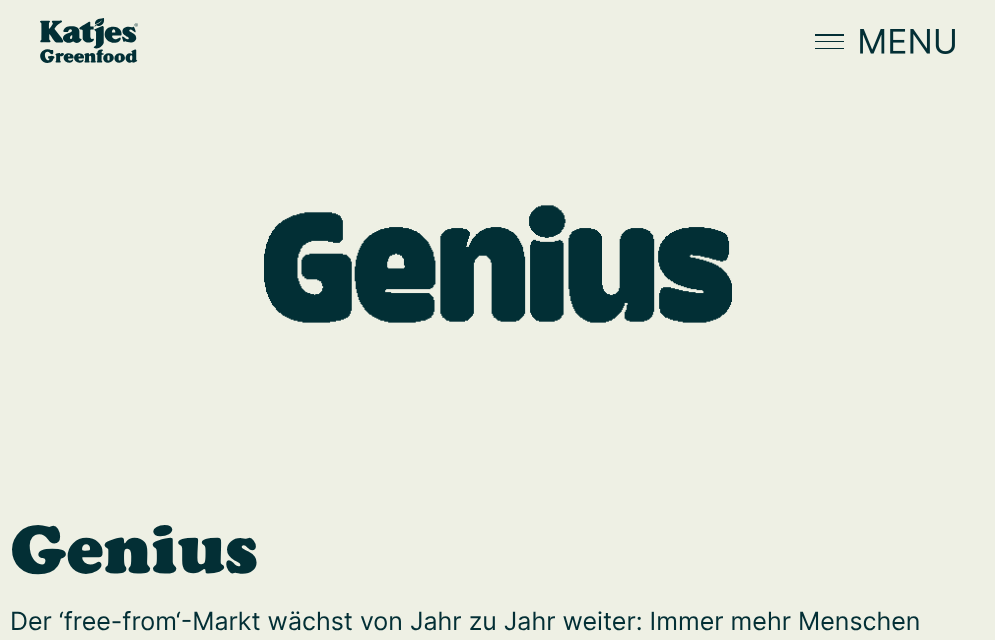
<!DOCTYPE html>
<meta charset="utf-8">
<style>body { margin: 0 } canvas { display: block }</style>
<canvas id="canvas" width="995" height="640"></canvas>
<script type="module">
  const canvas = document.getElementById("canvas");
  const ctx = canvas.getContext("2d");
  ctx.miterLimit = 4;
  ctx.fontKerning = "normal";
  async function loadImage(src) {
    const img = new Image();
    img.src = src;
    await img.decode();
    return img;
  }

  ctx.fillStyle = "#eef0e4";
  ctx.fillRect(0, 0, 995, 640);
  ctx.drawImage(await loadImage("img1.png"), 40, 18, 98, 45);
  ctx.drawImage(await loadImage("img2.png"), 815, 29, 140, 25);
  ctx.drawImage(await loadImage("img3.png"), 264, 205, 468, 118);
  ctx.font = "900 65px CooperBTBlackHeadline";
  ctx.fillStyle = "#032f35";
  ctx.fillText("Genius", 10, 573);
  ctx.font = "25px Inter";
  ctx.fillText("Der ‘free-from‘-Markt wächst von Jahr zu Jahr weiter: Immer mehr Menschen", 10, 630);
</script>
